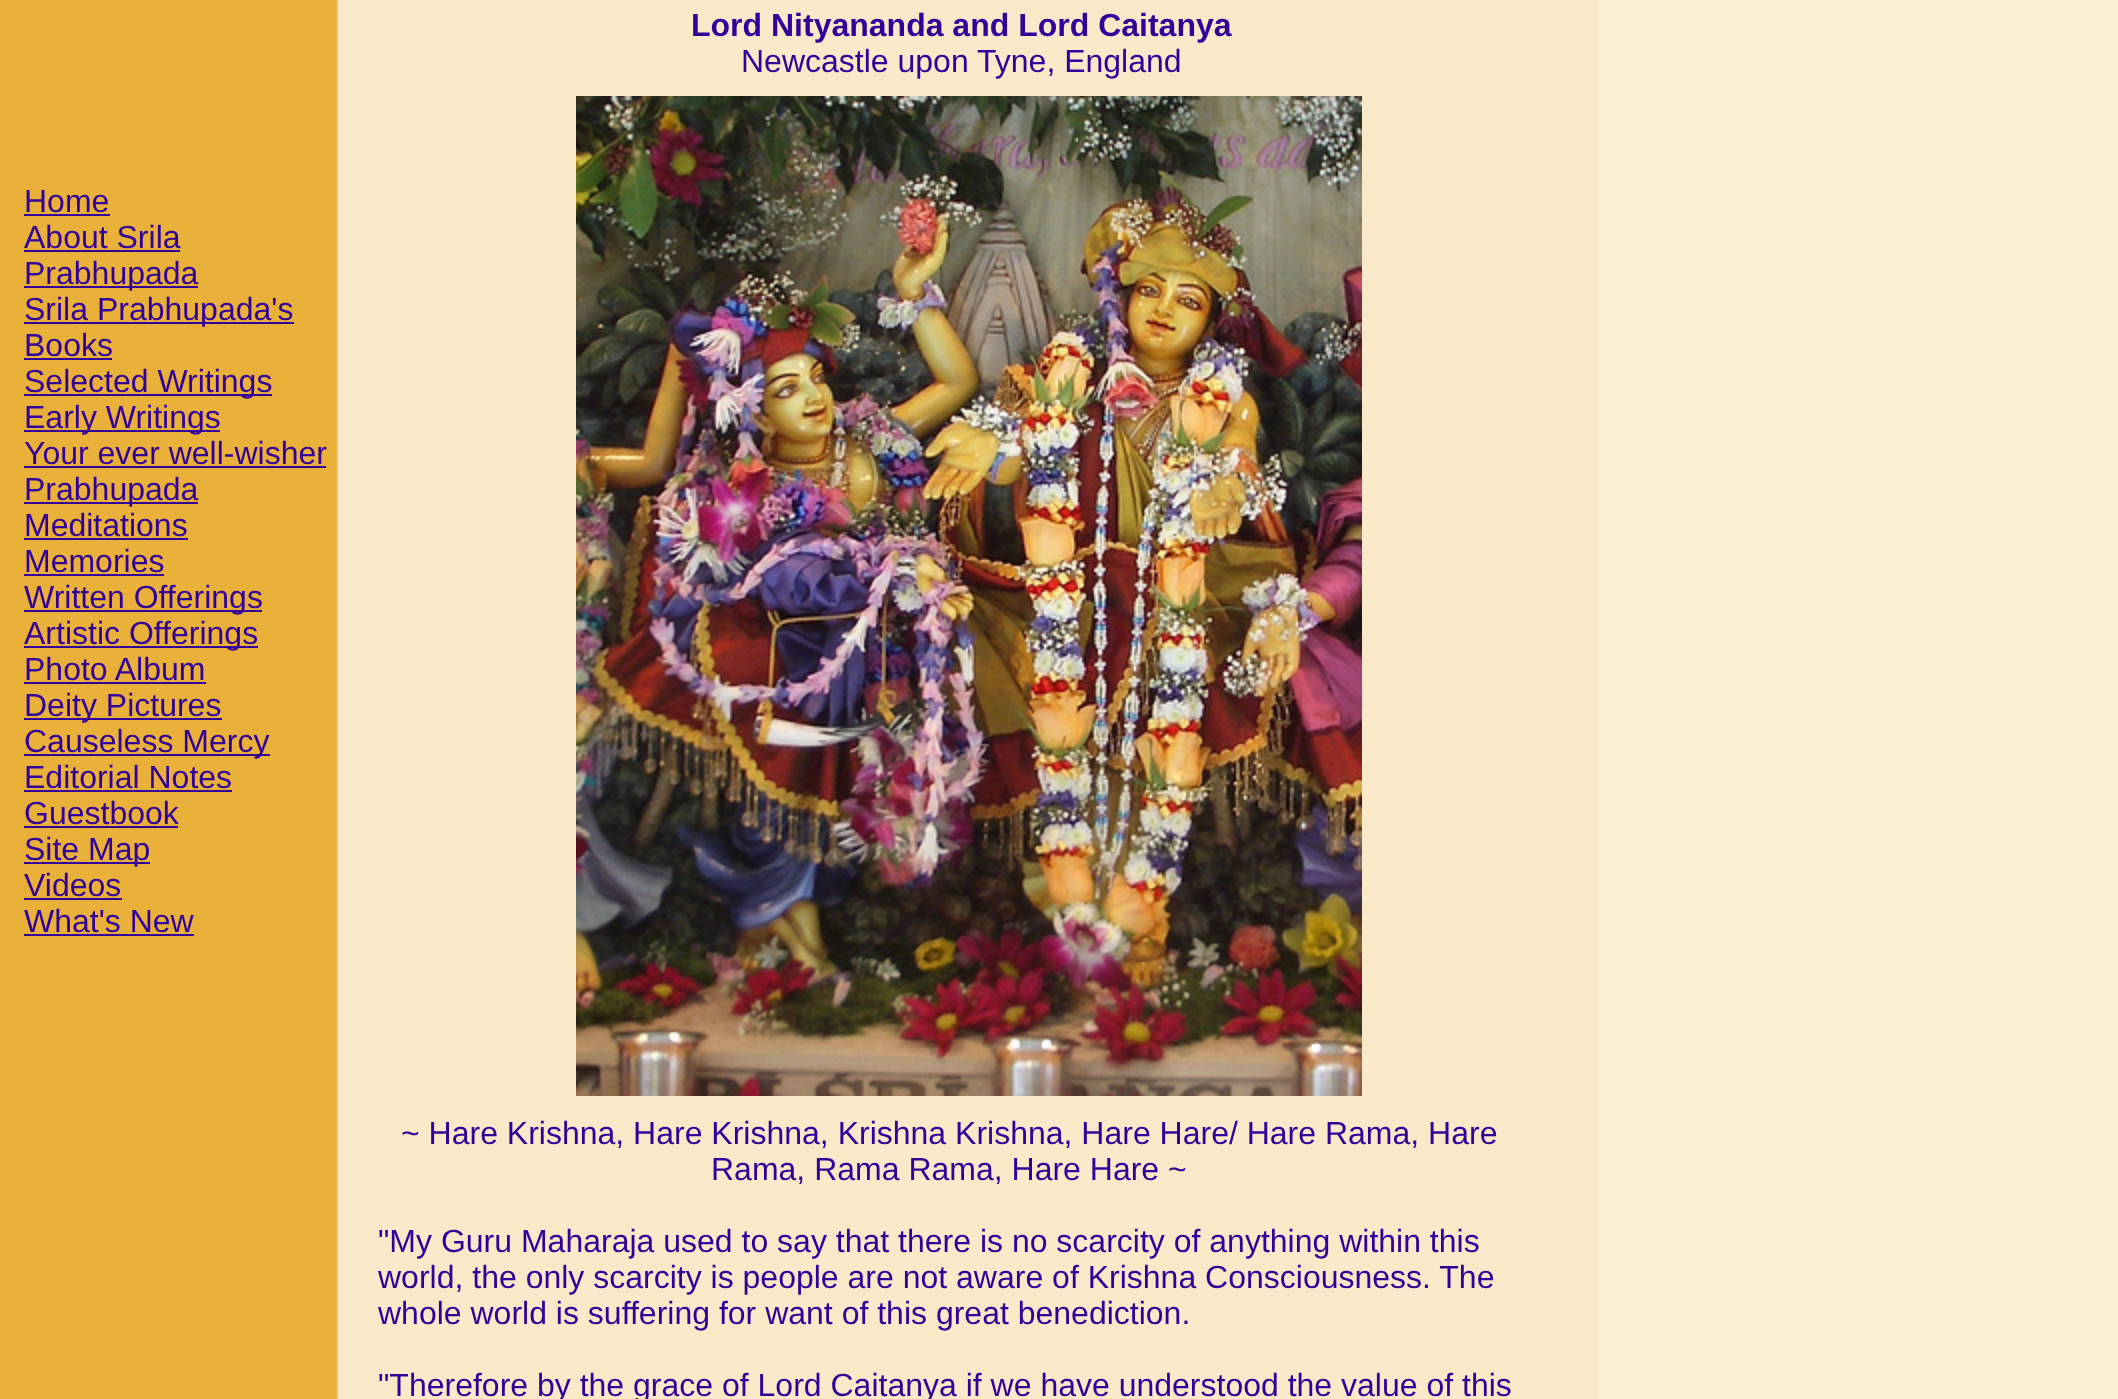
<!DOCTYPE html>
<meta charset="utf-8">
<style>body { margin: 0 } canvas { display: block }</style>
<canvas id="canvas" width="2118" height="1399"></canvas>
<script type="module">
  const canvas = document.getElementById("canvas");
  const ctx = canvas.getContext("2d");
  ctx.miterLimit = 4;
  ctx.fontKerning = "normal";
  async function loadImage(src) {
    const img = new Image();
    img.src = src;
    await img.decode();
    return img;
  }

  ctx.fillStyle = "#ffffff";
  ctx.fillRect(0, 0, 2118, 1399);
  ctx.drawImage(await loadImage("img1.png"), 0, 0, 2118, 1399);
  ctx.font = "bold 32px Liberation Sans";
  ctx.fillStyle = "#330099";
  ctx.fillText("Lord Nityananda and Lord Caitanya", 691, 36);
  ctx.font = "32px Liberation Sans";
  ctx.fillText("Newcastle upon Tyne, England", 741, 72);
  ctx.fillText("Home", 24, 212);
  ctx.fillRect(24, 214, 86, 2);
  ctx.fillText("About Srila", 24, 248);
  ctx.fillRect(24, 250, 156, 2);
  ctx.fillRect(24, 286, 174, 2);
  ctx.fillText("Prabhupada", 24, 284);
  ctx.fillRect(24, 322, 270, 2);
  ctx.fillText("Srila Prabhupada's", 24, 320);
  ctx.fillText("Books", 24, 356);
  ctx.fillRect(24, 358, 88, 2);
  ctx.fillRect(24, 394, 248, 2);
  ctx.fillText("Selected Writings", 24, 392);
  ctx.fillRect(24, 430, 196, 2);
  ctx.fillText("Early Writings", 24, 428);
  ctx.fillText("Your ever well-wisher", 24, 464);
  ctx.fillRect(24, 466, 302, 2);
  ctx.fillRect(24, 502, 174, 2);
  ctx.fillText("Prabhupada", 24, 500);
  ctx.fillText("Meditations", 24, 536);
  ctx.fillRect(24, 538, 164, 2);
  ctx.fillText("Memories", 24, 572);
  ctx.fillRect(24, 574, 140, 2);
  ctx.fillRect(24, 610, 238, 2);
  ctx.fillText("Written Offerings", 24, 608);
  ctx.fillRect(24, 646, 234, 2);
  ctx.fillText("Artistic Offerings", 24, 644);
  ctx.fillText("Photo Album", 24, 680);
  ctx.fillRect(24, 682, 182, 2);
  ctx.fillRect(24, 718, 198, 2);
  ctx.fillText("Deity Pictures", 24, 716);
  ctx.fillRect(24, 754, 246, 2);
  ctx.fillText("Causeless Mercy", 24, 752);
  ctx.fillText("Editorial Notes", 24, 788);
  ctx.fillRect(24, 790, 208, 2);
  ctx.fillText("Guestbook", 24, 824);
  ctx.fillRect(24, 826, 154, 2);
  ctx.fillRect(24, 862, 126, 2);
  ctx.fillText("Site Map", 24, 860);
  ctx.fillText("Videos", 24, 896);
  ctx.fillRect(24, 898, 98, 2);
  ctx.fillText("What's New", 24, 932);
  ctx.fillRect(24, 934, 170, 2);
  ctx.drawImage(await loadImage("img2.png"), 576, 96, 786, 1000);
  ctx.fillText("~ Hare Krishna, Hare Krishna, Krishna Krishna, Hare Hare/ Hare Rama, Hare", 401, 1144);
  ctx.fillText("Rama, Rama Rama, Hare Hare ~", 711, 1180);
  ctx.fillText("\"My Guru Maharaja used to say that there is no scarcity of anything within this", 378, 1252);
  ctx.fillText("world, the only scarcity is people are not aware of Krishna Consciousness. The", 378, 1288);
  ctx.fillText("whole world is suffering for want of this great benediction.", 378, 1324);
  ctx.fillText("\"Therefore by the grace of Lord Caitanya if we have understood the value of this", 378, 1396);
</script>
